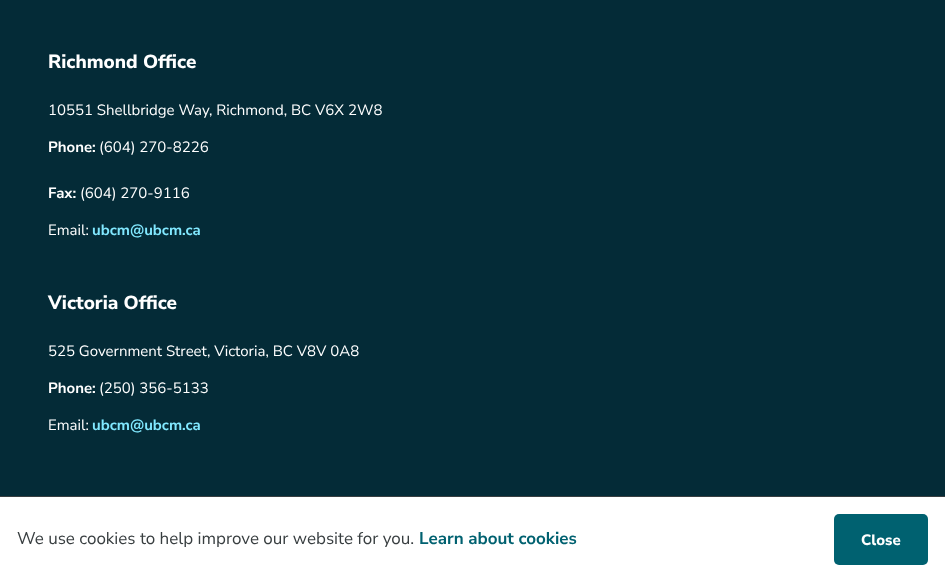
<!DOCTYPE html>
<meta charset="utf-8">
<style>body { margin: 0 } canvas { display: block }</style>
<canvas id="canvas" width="945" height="582"></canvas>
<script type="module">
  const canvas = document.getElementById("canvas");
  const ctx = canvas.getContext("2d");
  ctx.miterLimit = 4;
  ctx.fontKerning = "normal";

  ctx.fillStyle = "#042b37";
  ctx.fillRect(0, 0, 945, 582);
  ctx.font = "800 19px Nunito Sans";
  ctx.fillStyle = "#ffffff";
  ctx.fillText("Richmond Office", 48, 68);
  ctx.font = "15px Nunito Sans";
  ctx.fillText("10551 Shellbridge Way, Richmond, BC V6X 2W8", 48, 115);
  ctx.font = "bold 15px Nunito Sans";
  ctx.fillText("Phone:", 48, 152);
  ctx.font = "15px Nunito Sans";
  ctx.fillText("(604) 270-8226", 99, 152);
  ctx.font = "bold 15px Nunito Sans";
  ctx.fillText("Fax:", 48, 198);
  ctx.font = "15px Nunito Sans";
  ctx.fillText("(604) 270-9116", 80, 198);
  ctx.fillText("Email:", 48, 235);
  ctx.font = "bold 15px Nunito Sans";
  ctx.fillStyle = "#81e8ff";
  ctx.fillText("ubcm@ubcm.ca", 92, 235);
  ctx.font = "800 19px Nunito Sans";
  ctx.fillStyle = "#ffffff";
  ctx.fillText("Victoria Office", 48, 309);
  ctx.font = "15px Nunito Sans";
  ctx.fillText("525 Government Street, Victoria, BC V8V 0A8", 48, 356);
  ctx.font = "bold 15px Nunito Sans";
  ctx.fillText("Phone:", 48, 393);
  ctx.font = "15px Nunito Sans";
  ctx.fillText("(250) 356-5133", 99, 393);
  ctx.fillText("Email:", 48, 430);
  ctx.font = "bold 15px Nunito Sans";
  ctx.fillStyle = "#81e8ff";
  ctx.fillText("ubcm@ubcm.ca", 92, 430);
  ctx.fillStyle = "#ffffff";
  ctx.fillRect(0, 497, 945, 85);
  ctx.fillStyle = "#383e40";
  ctx.fillRect(0, 496, 945, 1);
  ctx.font = "17px Nunito Sans";
  ctx.fillText("We use cookies to help improve our website for you.", 17, 544);
  ctx.font = "bold 17px Nunito Sans";
  ctx.fillStyle = "#006170";
  ctx.fillText("Learn about cookies", 419, 544);
  ctx.beginPath();
  ctx.roundRect(834, 514, 94, 51, 5);
  ctx.fill();
  ctx.font = "800 15px Nunito Sans";
  ctx.fillStyle = "#ffffff";
  ctx.fillText("Close", 861, 545);
</script>
